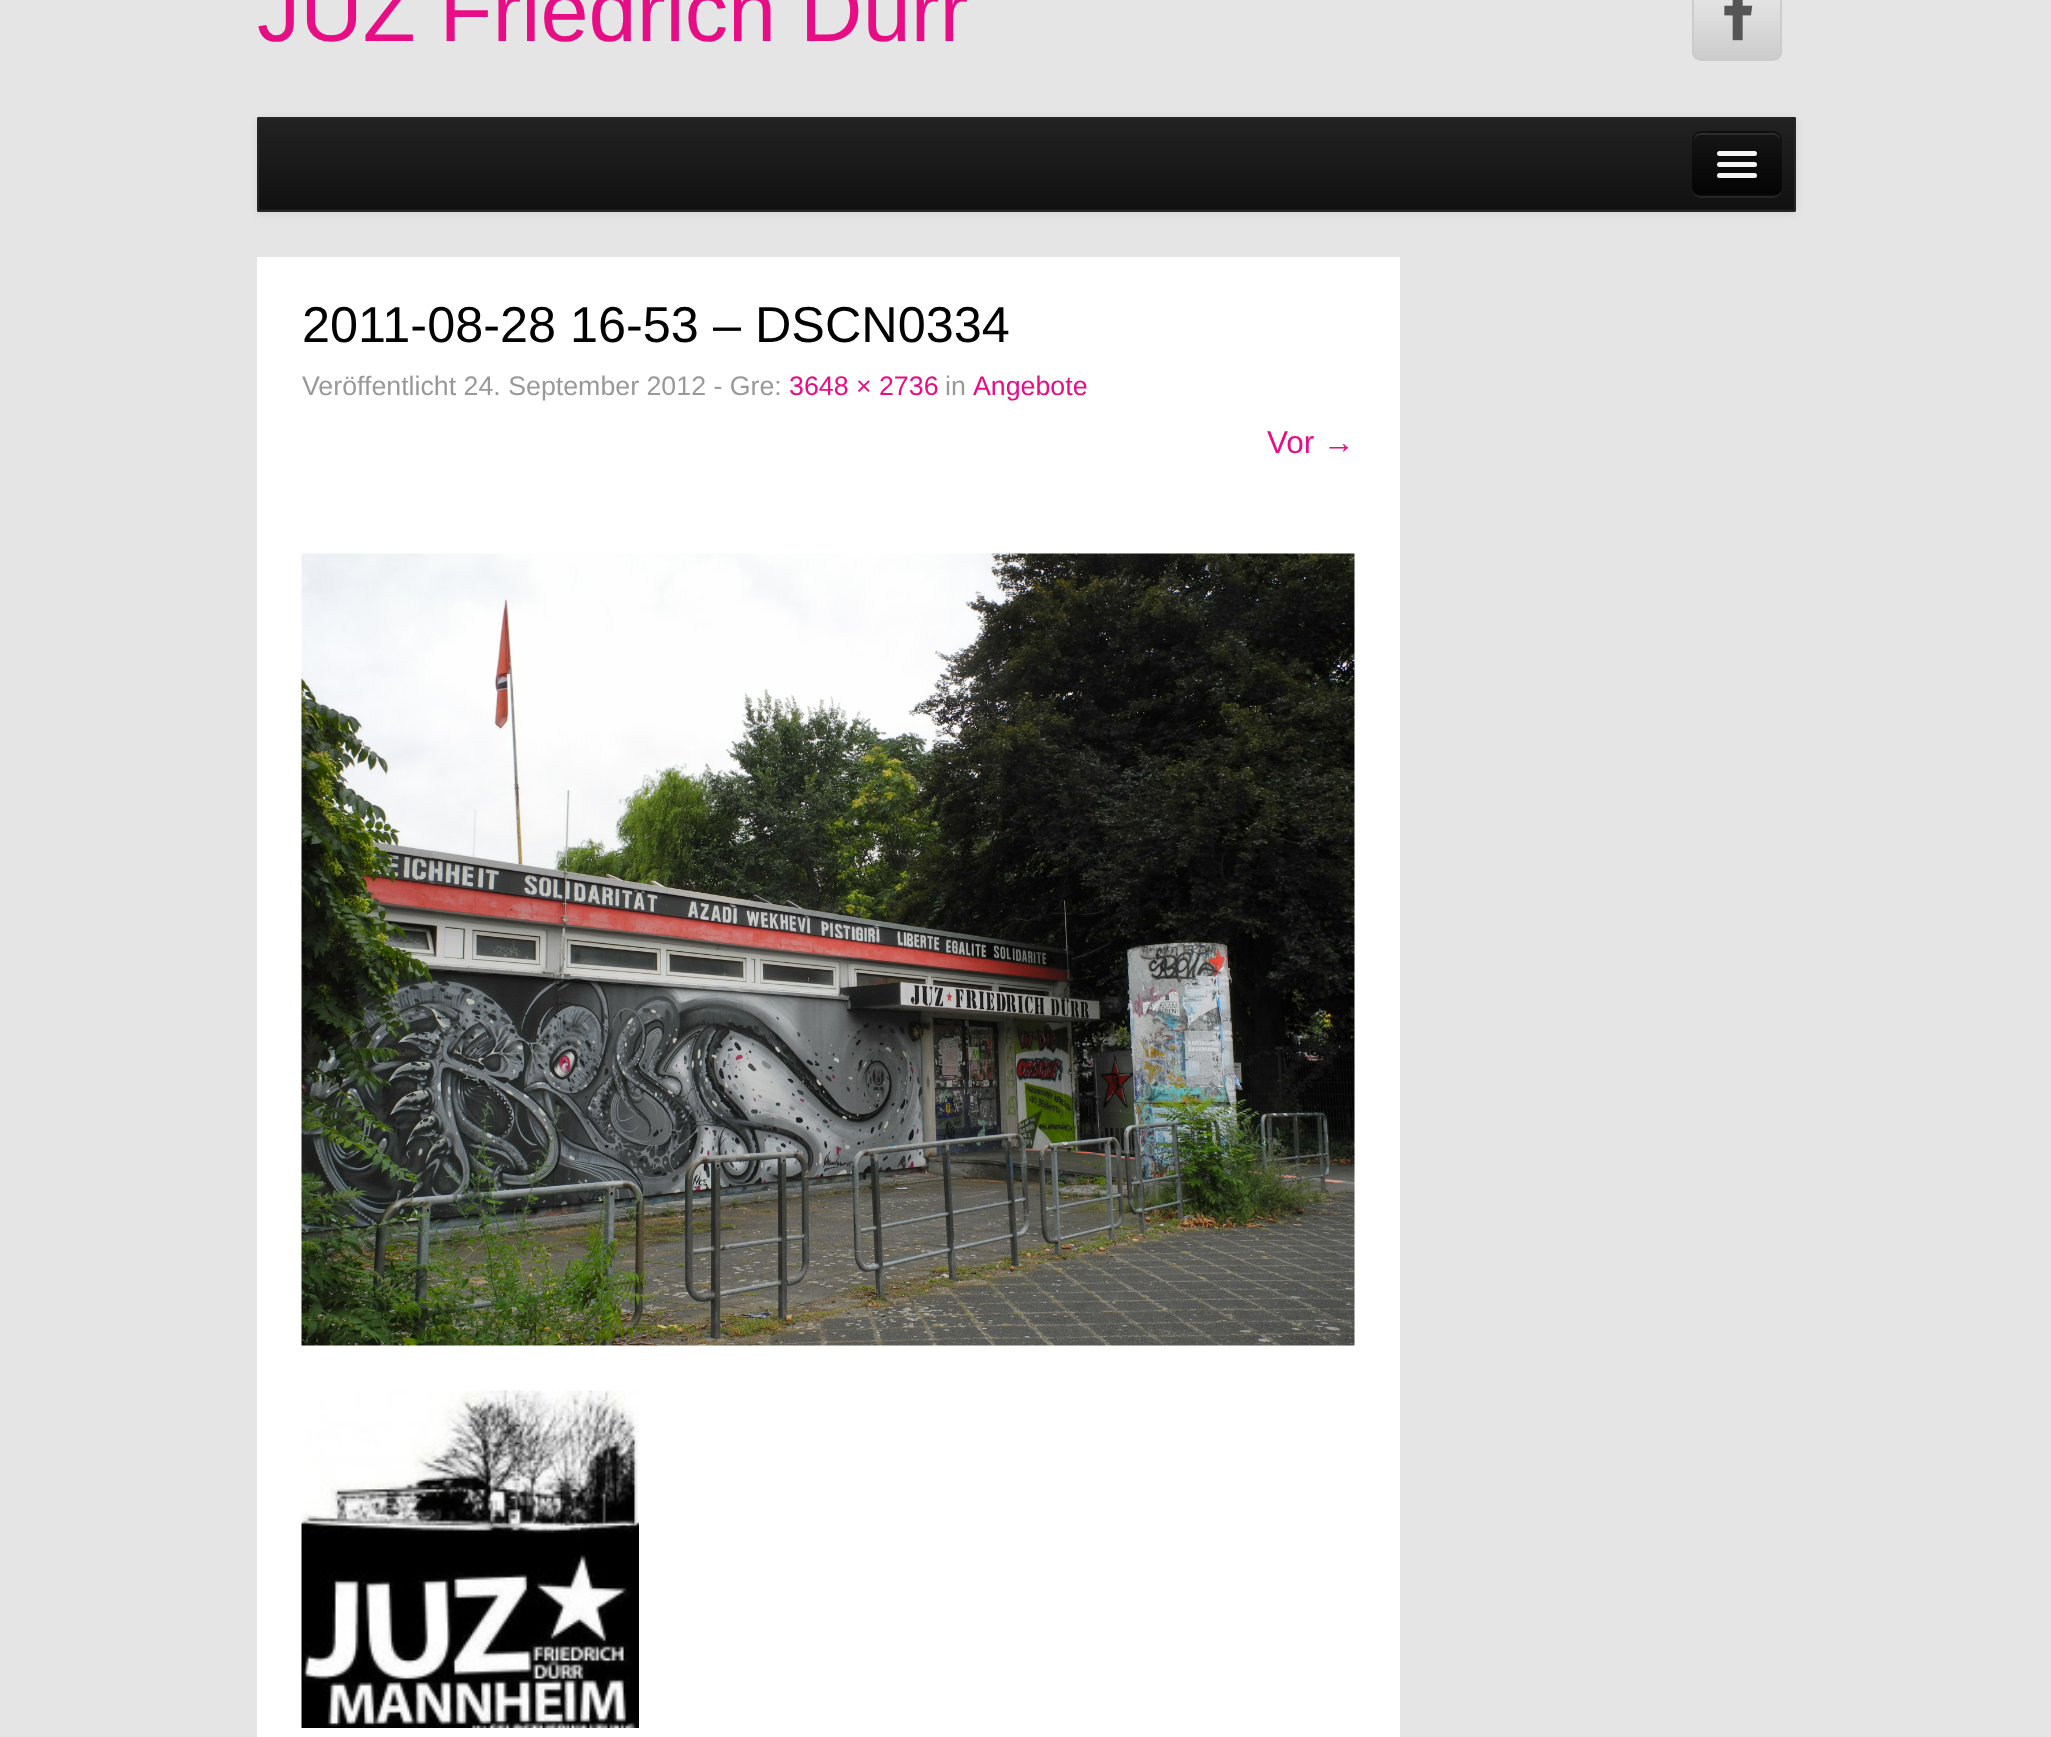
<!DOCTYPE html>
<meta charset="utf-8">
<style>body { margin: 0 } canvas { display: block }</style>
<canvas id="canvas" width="2051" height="1737"></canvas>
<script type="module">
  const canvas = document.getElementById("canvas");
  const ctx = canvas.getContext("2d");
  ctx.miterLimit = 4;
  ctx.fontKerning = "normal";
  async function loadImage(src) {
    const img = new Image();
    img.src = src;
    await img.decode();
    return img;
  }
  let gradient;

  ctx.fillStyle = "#e5e5e5";
  ctx.fillRect(0, 0, 2051, 1737);
  ctx.font = "86.5px Liberation Sans";
  ctx.fillStyle = "#e70d85";
  ctx.fillText("JUZ Friedrich Dürr", 257, 41);
  ctx.save();
  ctx.beginPath();
  ctx.roundRect(1692, -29, 90, 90, 9);
  ctx.clip();
  gradient = ctx.createLinearGradient(1737, -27, 1737, 59);
  gradient.addColorStop(0, "#eeeeee");
  gradient.addColorStop(1, "#cccccc");
  ctx.fillStyle = gradient;
  ctx.fillRect(1692, 0, 90, 59);
  ctx.restore();
  ctx.beginPath();
  ctx.roundRect(1693, -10, 88, 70, 8);
  ctx.strokeStyle = "#cccccc";
  ctx.lineWidth = 2;
  ctx.stroke();
  ctx.drawImage(await loadImage("img1.png"), 1724, 0, 29, 41);
  ctx.fillStyle = "rgba(0, 0, 0, 0.07)";
  ctx.filter = "blur(4.5px)";
  ctx.beginPath();
  ctx.roundRect(257, 119, 1539, 95, 2);
  ctx.fill();
  ctx.filter = "none";
  ctx.fillStyle = "#1b1b1b";
  ctx.beginPath();
  ctx.roundRect(257, 117, 1539, 95, 2);
  ctx.fill();
  gradient = ctx.createLinearGradient(1026, 119, 1026, 209);
  gradient.addColorStop(0, "#222222");
  gradient.addColorStop(1, "#111111");
  ctx.fillStyle = gradient;
  ctx.fillRect(259, 119, 1535, 90);
  ctx.beginPath();
  ctx.roundRect(258, 118, 1537, 93, 1);
  ctx.strokeStyle = "#252525";
  ctx.stroke();
  ctx.fillStyle = "#252525";
  ctx.beginPath();
  ctx.moveTo(1692, 187);
  ctx.bezierCurveTo(1692, 200, 1702, 198, 1713, 198);
  ctx.lineTo(1761, 198);
  ctx.bezierCurveTo(1772, 198, 1782, 200, 1782, 187);
  ctx.bezierCurveTo(1782, 192, 1778, 196, 1773, 196);
  ctx.lineTo(1701, 196);
  ctx.bezierCurveTo(1696, 196, 1692, 192, 1692, 187);
  ctx.closePath();
  ctx.fill();
  ctx.fillStyle = "#0e0e0e";
  ctx.beginPath();
  ctx.roundRect(1692, 131, 90, 65, 9);
  ctx.fill();
  ctx.save();
  ctx.beginPath();
  ctx.roundRect(1692, 131, 90, 65, 9);
  ctx.clip();
  gradient = ctx.createLinearGradient(1737, 133, 1737, 194);
  gradient.addColorStop(0, "#151515");
  gradient.addColorStop(1, "#040404");
  ctx.fillStyle = gradient;
  ctx.fillRect(1692, 133, 90, 61);
  ctx.restore();
  ctx.fillStyle = "#2c2c2c";
  ctx.beginPath();
  ctx.moveTo(1701, 135);
  ctx.lineTo(1773, 135);
  ctx.bezierCurveTo(1777, 135, 1780, 138, 1780, 142);
  ctx.bezierCurveTo(1780, 130, 1770, 133, 1761, 133);
  ctx.lineTo(1713, 133);
  ctx.bezierCurveTo(1704, 133, 1694, 130, 1694, 142);
  ctx.bezierCurveTo(1694, 138, 1697, 135, 1701, 135);
  ctx.closePath();
  ctx.fill();
  ctx.beginPath();
  ctx.moveTo(1778.5, 192.5);
  ctx.bezierCurveTo(1777, 194, 1775, 194.5, 1773, 194.5);
  ctx.lineTo(1701, 194.5);
  ctx.bezierCurveTo(1699, 194.5, 1697, 194, 1695.5, 192.5);
  ctx.strokeStyle = "rgba(0, 0, 0, 0.25)";
  ctx.lineWidth = 2.2;
  ctx.stroke();
  ctx.fillStyle = "#0b0b0b";
  ctx.beginPath();
  ctx.moveTo(1717, 154);
  ctx.bezierCurveTo(1715, 159, 1724, 158, 1725, 158);
  ctx.lineTo(1749, 158);
  ctx.bezierCurveTo(1750, 158, 1759, 159, 1757, 154);
  ctx.lineTo(1755, 155);
  ctx.lineTo(1719, 155);
  ctx.closePath();
  ctx.fill();
  ctx.fillStyle = "#f5f5f5";
  ctx.beginPath();
  ctx.roundRect(1717, 151, 40, 5, 2.5);
  ctx.fill();
  ctx.fillStyle = "#090909";
  ctx.beginPath();
  ctx.moveTo(1717, 166);
  ctx.bezierCurveTo(1715, 170, 1724, 169, 1725, 169);
  ctx.lineTo(1749, 169);
  ctx.bezierCurveTo(1750, 169, 1759, 170, 1757, 166);
  ctx.lineTo(1755, 166);
  ctx.lineTo(1719, 166);
  ctx.closePath();
  ctx.fill();
  ctx.fillStyle = "#f5f5f5";
  ctx.beginPath();
  ctx.roundRect(1717, 162, 40, 5, 2.5);
  ctx.fill();
  ctx.fillStyle = "#060606";
  ctx.beginPath();
  ctx.moveTo(1717, 177);
  ctx.bezierCurveTo(1714, 182, 1725, 181, 1725, 181);
  ctx.lineTo(1749, 181);
  ctx.bezierCurveTo(1749, 181, 1760, 182, 1757, 177);
  ctx.bezierCurveTo(1755, 178, 1719, 178, 1717, 177);
  ctx.closePath();
  ctx.fill();
  ctx.fillStyle = "#f5f5f5";
  ctx.beginPath();
  ctx.roundRect(1717, 173, 40, 5, 2.5);
  ctx.fill();
  ctx.fillStyle = "#ffffff";
  ctx.fillRect(257, 257, 1143, 1480);
  ctx.font = "50.4px Liberation Sans";
  ctx.fillStyle = "#020202";
  ctx.fillText("2011-08-28 16-53 – DSCN0334", 302, 342);
  ctx.font = "26.75px Liberation Sans";
  ctx.fillStyle = "#999999";
  ctx.fillText("Veröffentlicht 24. September 2012 - Gre:", 302, 395);
  ctx.fillStyle = "#e70d85";
  ctx.fillText("3648 × 2736", 789, 395);
  ctx.fillStyle = "#999999";
  ctx.fillText("in", 945, 395);
  ctx.fillStyle = "#e70d85";
  ctx.fillText("Angebote", 973, 395);
  ctx.font = "31.5px Liberation Sans";
  ctx.fillText("Vor →", 1267, 453);
  ctx.drawImage(await loadImage("img2.png"), 301, 553, 1054, 793);
  ctx.drawImage(await loadImage("img3.png"), 301, 1390, 338, 338);
</script>
